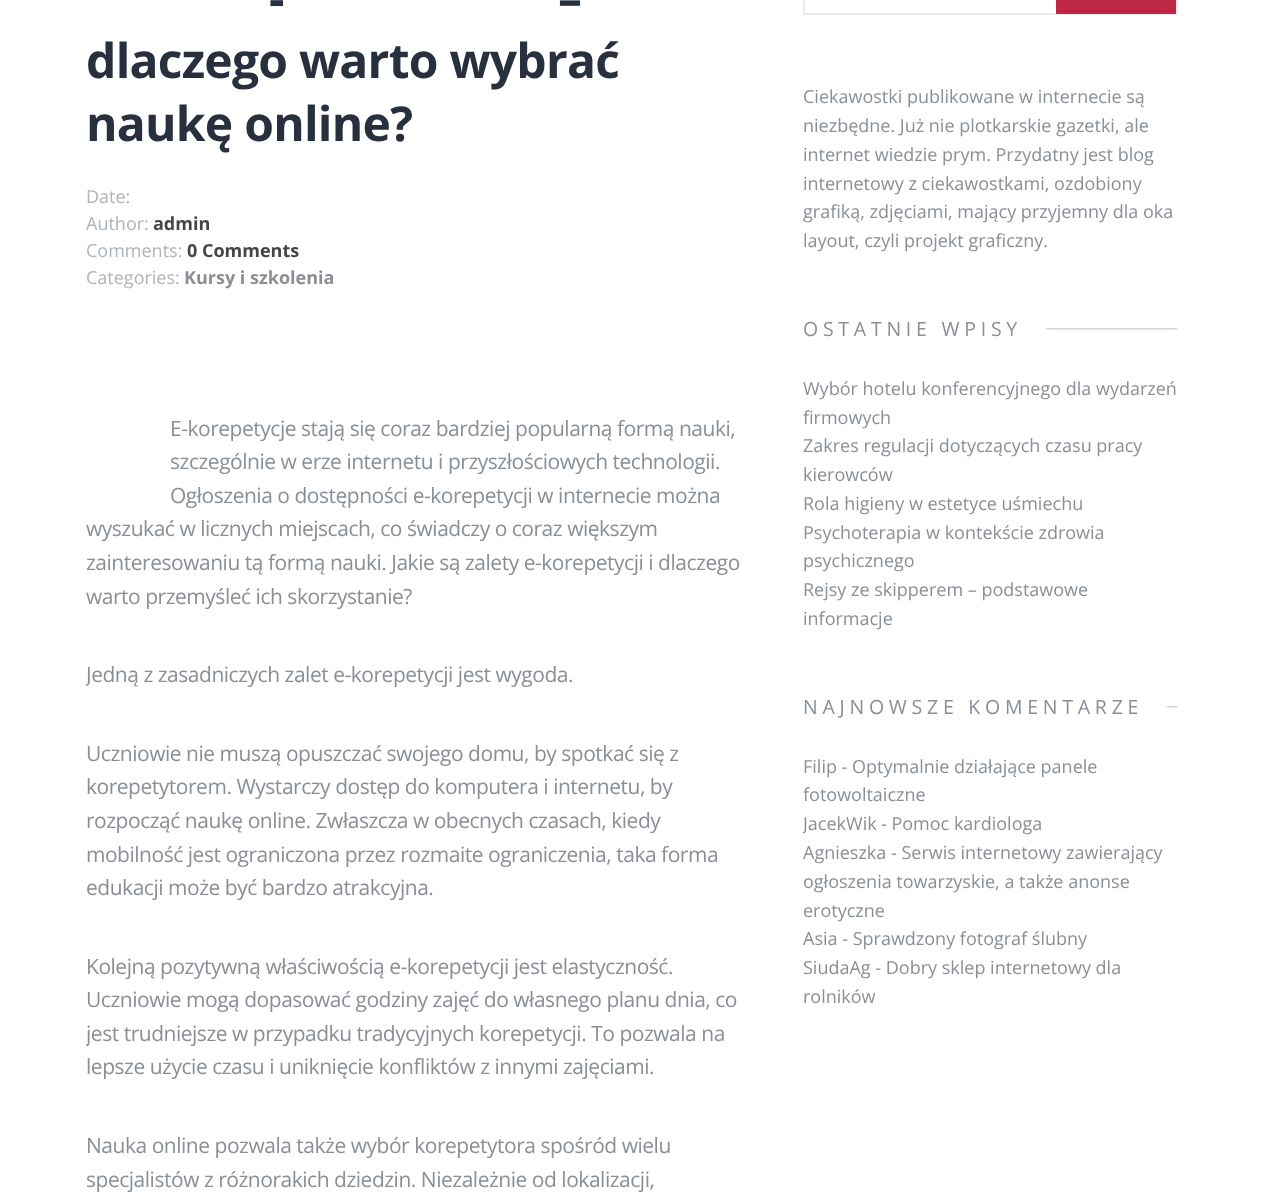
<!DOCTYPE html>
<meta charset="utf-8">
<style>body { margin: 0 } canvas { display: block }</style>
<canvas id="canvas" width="1263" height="1196"></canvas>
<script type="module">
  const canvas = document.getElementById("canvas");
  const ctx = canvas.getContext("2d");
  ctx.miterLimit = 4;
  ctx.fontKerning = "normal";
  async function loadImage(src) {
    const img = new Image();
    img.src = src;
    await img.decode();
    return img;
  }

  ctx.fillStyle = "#ffffff";
  ctx.fillRect(0, 0, 1263, 1196);
  ctx.letterSpacing = "-0.75px";
  ctx.font = "bold 48px Open Sans";
  ctx.fillStyle = "#27303c";
  ctx.fillText("-", 269, 16);
  ctx.fillText("–", 558, 16);
  ctx.fillText("dlaczego warto wybrać", 86, 78);
  ctx.fillText("naukę online?", 86, 141);
  ctx.letterSpacing = "0px";
  ctx.font = "18px Open Sans";
  ctx.fillStyle = "#aeb3bb";
  ctx.fillText("Date:", 86, 203);
  ctx.fillText("Author:", 86, 230);
  ctx.font = "bold 18px Open Sans";
  ctx.fillStyle = "#454545";
  ctx.fillText("admin", 153, 230);
  ctx.font = "18px Open Sans";
  ctx.fillStyle = "#aeb3bb";
  ctx.fillText("Comments:", 86, 257);
  ctx.font = "bold 18px Open Sans";
  ctx.fillStyle = "#454545";
  ctx.fillText("0 Comments", 187, 257);
  ctx.font = "18px Open Sans";
  ctx.fillStyle = "#aeb3bb";
  ctx.fillText("Categories:", 86, 284);
  ctx.font = "bold 18px Open Sans";
  ctx.fillStyle = "#8a8f97";
  ctx.fillText("Kursy i szkolenia", 184, 284);
  ctx.letterSpacing = "-0.48px";
  ctx.font = "21px Open Sans";
  ctx.fillText("E-korepetycje stają się coraz bardziej popularną formą nauki,", 170, 436);
  ctx.fillText("szczególnie w erze internetu i przyszłościowych technologii.", 170, 469);
  ctx.fillText("Ogłoszenia o dostępności e-korepetycji w internecie można", 170, 503);
  ctx.fillText("wyszukać w licznych miejscach, co świadczy o coraz większym", 86, 536);
  ctx.fillText("zainteresowaniu tą formą nauki. Jakie są zalety e-korepetycji i dlaczego", 86, 570);
  ctx.fillText("warto przemyśleć ich skorzystanie?", 86, 604);
  ctx.save();
  ctx.beginPath();
  ctx.rect(86, 0, 657, 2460);
  ctx.clip();
  ctx.fillText("Jedną z zasadniczych zalet e-korepetycji jest wygoda.", 86, 682);
  ctx.restore();
  ctx.fillText("Uczniowie nie muszą opuszczać swojego domu, by spotkać się z", 86, 761);
  ctx.fillText("korepetytorem. Wystarczy dostęp do komputera i internetu, by", 86, 794);
  ctx.fillText("rozpocząć naukę online. Zwłaszcza w obecnych czasach, kiedy", 86, 828);
  ctx.fillText("mobilność jest ograniczona przez rozmaite ograniczenia, taka forma", 86, 862);
  ctx.fillText("edukacji może być bardzo atrakcyjna.", 86, 895);
  ctx.fillText("Kolejną pozytywną właściwością e-korepetycji jest elastyczność.", 86, 974);
  ctx.fillText("Uczniowie mogą dopasować godziny zajęć do własnego planu dnia, co", 86, 1007);
  ctx.save();
  ctx.beginPath();
  ctx.rect(86, 0, 657, 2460);
  ctx.clip();
  ctx.fillText("jest trudniejsze w przypadku tradycyjnych korepetycji. To pozwala na", 86, 1041);
  ctx.restore();
  ctx.fillText("lepsze użycie czasu i uniknięcie konfliktów z innymi zajęciami.", 86, 1074);
  ctx.fillText("Nauka online pozwala także wybór korepetytora spośród wielu", 86, 1153);
  ctx.fillText("specjalistów z różnorakich dziedzin. Niezależnie od lokalizacji,", 86, 1187);
  ctx.strokeStyle = "#ebebeb";
  ctx.lineWidth = 2;
  ctx.strokeRect(804, -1, 373, 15);
  ctx.fillStyle = "#be2844";
  ctx.fillRect(1056, 0, 120, 14);
  ctx.letterSpacing = "0px";
  ctx.font = "18px Open Sans";
  ctx.fillStyle = "#8a8f97";
  ctx.fillText("Ciekawostki publikowane w internecie są", 803, 103);
  ctx.fillText("niezbędne. Już nie plotkarskie gazetki, ale", 803, 132);
  ctx.fillText("internet wiedzie prym. Przydatny jest blog", 803, 161);
  ctx.fillText("internetowy z ciekawostkami, ozdobiony", 803, 190);
  ctx.fillText("grafiką, zdjęciami, mający przyjemny dla oka", 803, 218);
  ctx.fillText("layout, czyli projekt graficzny.", 803, 247);
  ctx.drawImage(await loadImage("img1.png"), 802, 328, 376, 2);
  ctx.fillStyle = "#ffffff";
  ctx.fillRect(803, 328, 243, 2);
  ctx.letterSpacing = "4.75px";
  ctx.font = "19.5px Open Sans";
  ctx.fillStyle = "#8a8f97";
  ctx.fillText("OSTATNIE WPISY", 803, 336);
  ctx.letterSpacing = "0px";
  ctx.font = "18px Open Sans";
  ctx.fillText("Wybór hotelu konferencyjnego dla wydarzeń", 803, 395);
  ctx.fillText("firmowych", 803, 424);
  ctx.fillText("Zakres regulacji dotyczących czasu pracy", 803, 452);
  ctx.fillText("kierowców", 803, 481);
  ctx.fillText("Rola higieny w estetyce uśmiechu", 803, 510);
  ctx.fillText("Psychoterapia w kontekście zdrowia", 803, 539);
  ctx.fillText("psychicznego", 803, 567);
  ctx.fillText("Rejsy ze skipperem – podstawowe", 803, 596);
  ctx.fillText("informacje", 803, 625);
  ctx.drawImage(await loadImage("img1.png"), 802, 706, 376, 2);
  ctx.fillStyle = "#ffffff";
  ctx.fillRect(803, 706, 364, 2);
  ctx.letterSpacing = "4.75px";
  ctx.font = "19.5px Open Sans";
  ctx.fillStyle = "#8a8f97";
  ctx.fillText("NAJNOWSZE KOMENTARZE", 803, 714);
  ctx.letterSpacing = "0px";
  ctx.font = "18px Open Sans";
  ctx.fillText("Filip - Optymalnie działające panele", 803, 773);
  ctx.fillText("fotowoltaiczne", 803, 801);
  ctx.save();
  ctx.beginPath();
  ctx.rect(803, 0, 375, 1071);
  ctx.clip();
  ctx.fillText("JacekWik", 803, 830);
  ctx.restore();
  ctx.fillText("- Pomoc kardiologa", 881, 830);
  ctx.fillText("Agnieszka - Serwis internetowy zawierający", 803, 859);
  ctx.fillText("ogłoszenia towarzyskie, a także anonse", 803, 888);
  ctx.fillText("erotyczne", 803, 917);
  ctx.fillText("Asia - Sprawdzony fotograf ślubny", 803, 945);
  ctx.fillText("SiudaAg - Dobry sklep internetowy dla", 803, 974);
  ctx.fillText("rolników", 803, 1003);
</script>
